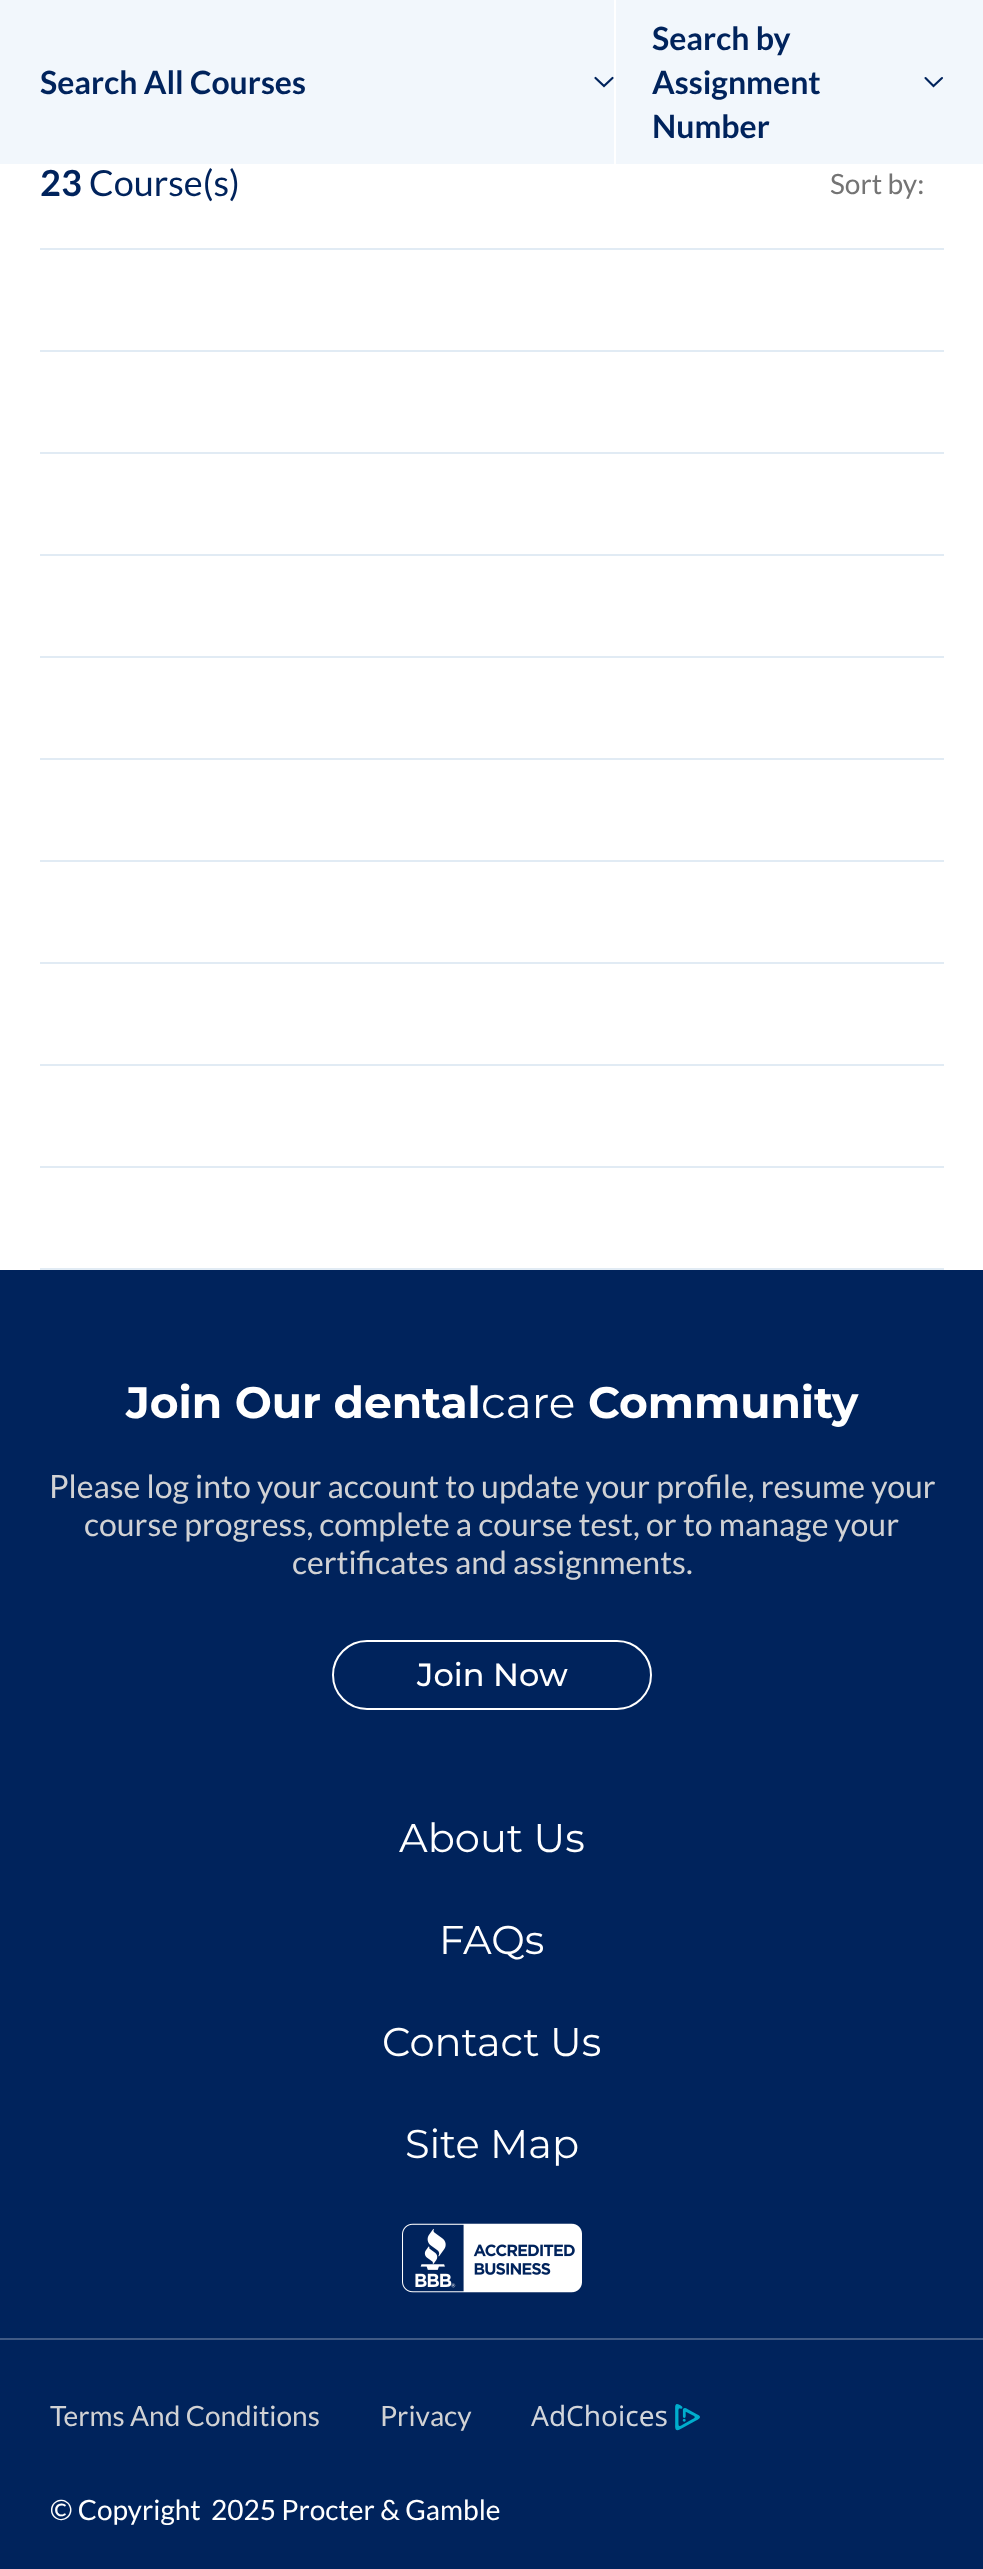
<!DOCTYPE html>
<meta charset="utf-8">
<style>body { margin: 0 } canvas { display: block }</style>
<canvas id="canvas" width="983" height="2569"></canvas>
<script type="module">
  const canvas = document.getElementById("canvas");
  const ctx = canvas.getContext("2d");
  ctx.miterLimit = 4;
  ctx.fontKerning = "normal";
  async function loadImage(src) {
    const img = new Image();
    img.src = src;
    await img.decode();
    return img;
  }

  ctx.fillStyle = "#ffffff";
  ctx.fillRect(0, 0, 983, 2569);
  ctx.fillStyle = "#f2f7fc";
  ctx.fillRect(0, 0, 983, 164);
  ctx.fillStyle = "#ffffff";
  ctx.fillRect(614, 0, 2, 164);
  ctx.font = "bold 32px Lato";
  ctx.fillStyle = "#00235c";
  ctx.fillText("Search All Courses", 40, 94);
  ctx.beginPath();
  ctx.moveTo(595.5, 78);
  ctx.lineTo(604, 86);
  ctx.lineTo(612.5, 78);
  ctx.strokeStyle = "#00235c";
  ctx.lineWidth = 2.2;
  ctx.lineCap = "round";
  ctx.stroke();
  ctx.fillText("Search by", 652, 50);
  ctx.fillText("Assignment", 652, 94);
  ctx.fillText("Number", 652, 138);
  ctx.beginPath();
  ctx.moveTo(925.5, 78);
  ctx.lineTo(933.5, 86);
  ctx.lineTo(942, 78);
  ctx.lineWidth = 2.1;
  ctx.stroke();
  ctx.fillStyle = "#e1ebf4";
  ctx.fillRect(40, 248, 904, 2);
  ctx.font = "bold 36px Lato";
  ctx.fillStyle = "#00235c";
  ctx.fillText("23", 40, 196);
  ctx.font = "36px Lato";
  ctx.fillText("Course(s)", 89, 196);
  ctx.font = "28px Lato";
  ctx.fillStyle = "#747474";
  ctx.fillText("Sort by:", 830, 194);
  ctx.fillStyle = "#e1ebf4";
  ctx.fillRect(40, 350, 904, 2);
  ctx.fillRect(40, 452, 904, 2);
  ctx.fillRect(40, 554, 904, 2);
  ctx.fillRect(40, 656, 904, 2);
  ctx.fillRect(40, 758, 904, 2);
  ctx.fillRect(40, 860, 904, 2);
  ctx.fillRect(40, 962, 904, 2);
  ctx.fillRect(40, 1064, 904, 2);
  ctx.fillRect(40, 1166, 904, 2);
  ctx.fillRect(40, 1268, 904, 2);
  ctx.fillStyle = "#00235c";
  ctx.fillRect(0, 1270, 983, 1299);
  ctx.font = "bold 44px Montserrat";
  ctx.fillStyle = "#ffffff";
  ctx.fillText("Join Our dental", 126, 1418);
  ctx.font = "44px Montserrat";
  ctx.fillText("care", 481, 1418);
  ctx.font = "bold 44px Montserrat";
  ctx.fillText("Community", 588, 1418);
  ctx.font = "32px Lato";
  ctx.fillStyle = "#d1d2d4";
  ctx.fillText("Please log into your account to update your profile, resume your", 49, 1498);
  ctx.fillText("course progress, complete a course test, or to manage your", 84, 1536);
  ctx.fillText("certificates and assignments.", 292, 1574);
  ctx.beginPath();
  ctx.roundRect(333, 1641, 318, 68, 34);
  ctx.strokeStyle = "#ffffff";
  ctx.lineWidth = 2;
  ctx.stroke();
  ctx.font = "500 32px Montserrat";
  ctx.fillStyle = "#ffffff";
  ctx.fillText("Join Now", 417, 1686);
  ctx.font = "40px Montserrat";
  ctx.fillText("About Us", 399, 1852);
  ctx.fillText("FAQs", 439, 1954);
  ctx.fillText("Contact Us", 382, 2056);
  ctx.fillText("Site Map", 405, 2158);
  ctx.fillStyle = "#405a85";
  ctx.fillRect(0, 2338, 983, 2);
  ctx.drawImage(await loadImage("img1.png"), 402, 2223, 180, 70);
  ctx.font = "28px Lato";
  ctx.fillStyle = "#d1d2d4";
  ctx.fillText("Terms And Conditions", 50, 2426);
  ctx.fillText("Privacy", 380, 2426);
  ctx.font = "28px Noto Sans";
  ctx.fillStyle = "#d1d5db";
  ctx.fillText("AdChoices", 531, 2426);
  ctx.drawImage(await loadImage("img2.png"), 675, 2404, 25, 27);
  ctx.font = "28px Lato";
  ctx.fillStyle = "#ffffff";
  ctx.fillText("© Copyright", 50, 2520);
  ctx.fillText("2025 Procter & Gamble", 211, 2520);
</script>
